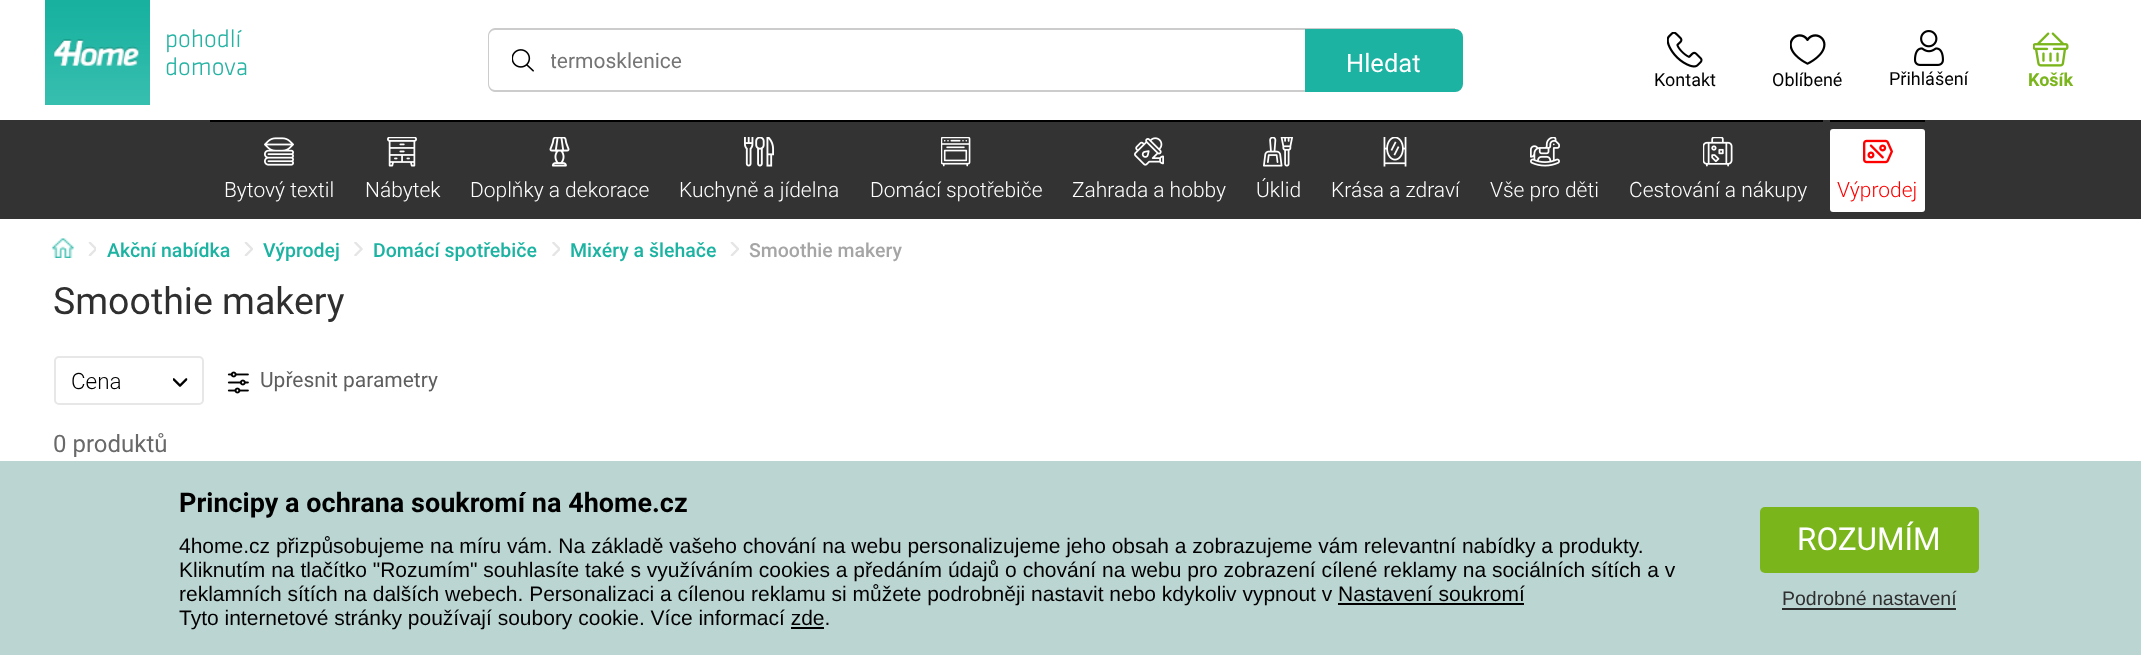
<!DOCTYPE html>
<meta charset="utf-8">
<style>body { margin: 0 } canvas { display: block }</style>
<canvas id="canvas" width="2141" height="655"></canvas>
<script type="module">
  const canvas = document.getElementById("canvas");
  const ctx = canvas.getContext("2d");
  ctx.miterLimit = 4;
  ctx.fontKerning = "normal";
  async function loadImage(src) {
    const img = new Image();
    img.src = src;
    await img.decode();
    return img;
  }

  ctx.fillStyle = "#ffffff";
  ctx.fillRect(0, 0, 2141, 655);
  ctx.drawImage(await loadImage("img1.png"), 45, 0, 105, 105);
  ctx.font = "300 25.5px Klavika";
  ctx.fillStyle = "#26b3a3";
  ctx.fillText("pohodlí", 165, 47);
  ctx.fillText("domova", 165, 75);
  ctx.drawImage(await loadImage("img2.png"), 512, 49, 22, 23);
  ctx.fillStyle = "#cccccc";
  ctx.beginPath();
  ctx.moveTo(495, 28);
  ctx.lineTo(1455, 28);
  ctx.lineTo(1455, 92);
  ctx.lineTo(495, 92);
  ctx.bezierCurveTo(491, 92, 488, 88, 488, 84);
  ctx.lineTo(488, 36);
  ctx.bezierCurveTo(488, 32, 491, 28, 495, 28);
  ctx.closePath();
  ctx.moveTo(495, 30);
  ctx.lineTo(1455, 30);
  ctx.lineTo(1455, 90);
  ctx.lineTo(495, 90);
  ctx.bezierCurveTo(492, 90, 489, 87, 489, 84);
  ctx.lineTo(489, 36);
  ctx.bezierCurveTo(489, 33, 492, 30, 495, 30);
  ctx.closePath();
  ctx.fill("evenodd");
  ctx.save();
  ctx.beginPath();
  ctx.rect(551, 48, 889, 24);
  ctx.clip();
  ctx.font = "21px Roboto";
  ctx.fillStyle = "#757575";
  ctx.fillText("termosklenice", 550, 68);
  ctx.restore();
  ctx.fillStyle = "#1cb3a2";
  ctx.beginPath();
  ctx.roundRect(1306, 30, 156, 61, [0, 7, 7, 0]);
  ctx.fill();
  ctx.strokeStyle = "#1cb3a2";
  ctx.lineWidth = 2;
  ctx.stroke();
  ctx.font = "25.5px Roboto";
  ctx.fillStyle = "#ffffff";
  ctx.fillText("Hledat", 1346, 72);
  ctx.drawImage(await loadImage("img3.png"), 1667, 32, 36, 36);
  ctx.font = "18px Roboto";
  ctx.fillStyle = "#000000";
  ctx.fillText("Kontakt", 1654, 86);
  ctx.drawImage(await loadImage("img4.png"), 1790, 34, 36, 31);
  ctx.fillText("Oblíbené", 1772, 86);
  ctx.drawImage(await loadImage("img5.png"), 1913, 30, 31, 36);
  ctx.fillText("Přihlášení", 1889, 85);
  ctx.drawImage(await loadImage("img6.png"), 2033, 32, 36, 35);
  ctx.font = "bold 18px Roboto";
  ctx.fillStyle = "#7ab51c";
  ctx.fillText("Košík", 2028, 86);
  ctx.fillStyle = "#333333";
  ctx.fillRect(0, 120, 2141, 99);
  ctx.fillStyle = "#000000";
  ctx.fillRect(210, 120, 1613, 2);
  ctx.drawImage(await loadImage("img7.png"), 264, 137, 30, 29);
  ctx.font = "300 21px Roboto";
  ctx.fillStyle = "#ffffff";
  ctx.fillText("Bytový textil", 224, 197);
  ctx.drawImage(await loadImage("img8.png"), 387, 137, 30, 30);
  ctx.fillText("Nábytek", 365, 197);
  ctx.drawImage(await loadImage("img9.png"), 549, 137, 21, 30);
  ctx.fillText("Doplňky a dekorace", 470, 197);
  ctx.drawImage(await loadImage("img10.png"), 744, 137, 30, 30);
  ctx.fillText("Kuchyně a jídelna", 679, 197);
  ctx.drawImage(await loadImage("img11.png"), 941, 137, 30, 30);
  ctx.fillText("Domácí spotřebiče", 870, 197);
  ctx.drawImage(await loadImage("img12.png"), 1134, 137, 30, 29);
  ctx.fillText("Zahrada a hobby", 1072, 197);
  ctx.drawImage(await loadImage("img13.png"), 1263, 137, 30, 30);
  ctx.fillText("Úklid", 1256, 197);
  ctx.drawImage(await loadImage("img14.png"), 1383, 137, 24, 30);
  ctx.fillText("Krása a zdraví", 1331, 197);
  ctx.drawImage(await loadImage("img15.png"), 1530, 137, 30, 30);
  ctx.fillText("Vše pro děti", 1490, 197);
  ctx.drawImage(await loadImage("img16.png"), 1703, 137, 30, 30);
  ctx.fillText("Cestování a nákupy", 1629, 197);
  ctx.fillStyle = "#000000";
  ctx.fillRect(1830, 120, 95, 2);
  ctx.fillStyle = "#ffffff";
  ctx.beginPath();
  ctx.roundRect(1830, 129, 95, 83, 3);
  ctx.fill();
  ctx.drawImage(await loadImage("img17.png"), 1863, 139, 30, 25);
  ctx.fillStyle = "#ff0000";
  ctx.fillText("Výprodej", 1837, 197);
  ctx.drawImage(await loadImage("img18.png"), 52, 238, 22, 20);
  ctx.drawImage(await loadImage("img19.png"), 88, 242, 8, 14);
  ctx.font = "500 19.5px Roboto";
  ctx.fillStyle = "#1cb3a2";
  ctx.fillText("Akční nabídka", 107, 257);
  ctx.drawImage(await loadImage("img20.png"), 244, 242, 9, 14);
  ctx.fillText("Výprodej", 263, 257);
  ctx.drawImage(await loadImage("img21.png"), 354, 242, 9, 14);
  ctx.fillText("Domácí spotřebiče", 373, 257);
  ctx.drawImage(await loadImage("img22.png"), 552, 242, 8, 14);
  ctx.fillText("Mixéry a šlehače", 570, 257);
  ctx.drawImage(await loadImage("img20.png"), 730, 242, 9, 14);
  ctx.fillStyle = "#a5a5a5";
  ctx.fillText("Smoothie makery", 749, 257);
  ctx.font = "37.5px Roboto";
  ctx.fillStyle = "#2f2f2f";
  ctx.fillText("Smoothie makery", 53, 314);
  ctx.beginPath();
  ctx.roundRect(55, 357, 148, 47, 4);
  ctx.strokeStyle = "#e7e7e7";
  ctx.stroke();
  ctx.font = "300 22.5px Roboto";
  ctx.fillStyle = "#000000";
  ctx.fillText("Cena", 71, 389);
  ctx.drawImage(await loadImage("img23.png"), 173, 378, 15, 9);
  ctx.drawImage(await loadImage("img24.png"), 227, 371, 22, 23);
  ctx.font = "21px Roboto";
  ctx.fillStyle = "#5e5e5e";
  ctx.fillText("Upřesnit parametry", 260, 387);
  ctx.font = "24px Roboto";
  ctx.fillStyle = "#696969";
  ctx.fillText("0 produktů", 53, 452);
  ctx.fillStyle = "#bbd5d2";
  ctx.fillRect(0, 461, 2141, 194);
  ctx.font = "bold 27px Roboto";
  ctx.fillStyle = "#000000";
  ctx.fillText("Principy a ochrana soukromí na 4home.cz", 179, 512);
  ctx.font = "21px Liberation Sans";
  ctx.fillText("4home.cz přizpůsobujeme na míru vám. Na základě vašeho chování na webu personalizujeme jeho obsah a zobrazujeme vám relevantní nabídky a produkty.", 179, 553);
  ctx.fillText("Kliknutím na tlačítko \"Rozumím\" souhlasíte také s využíváním cookies a předáním údajů o chování na webu pro zobrazení cílené reklamy na sociálních sítích a v", 179, 577);
  ctx.fillText("reklamních sítích na dalších webech. Personalizaci a cílenou reklamu si můžete podrobněji nastavit nebo kdykoliv vypnout v Nastavení soukromí", 179, 601);
  ctx.fillRect(1338, 603, 186, 2);
  ctx.fillText("Tyto internetové stránky používají soubory cookie. Více informací zde.", 179, 625);
  ctx.fillRect(791, 627, 33, 2);
  ctx.fillStyle = "#7ab51c";
  ctx.beginPath();
  ctx.roundRect(1760, 507, 219, 66, 5);
  ctx.fill();
  ctx.font = "31.5px Roboto";
  ctx.fillStyle = "#ffffff";
  ctx.fillText("ROZUMÍM", 1797, 550);
  ctx.font = "19.5px Liberation Sans";
  ctx.fillStyle = "#2f2f2f";
  ctx.fillText("Podrobné nastavení", 1782, 605);
  ctx.fillStyle = "#2a2a2a";
  ctx.fillRect(1782, 608, 174, 2);
</script>
